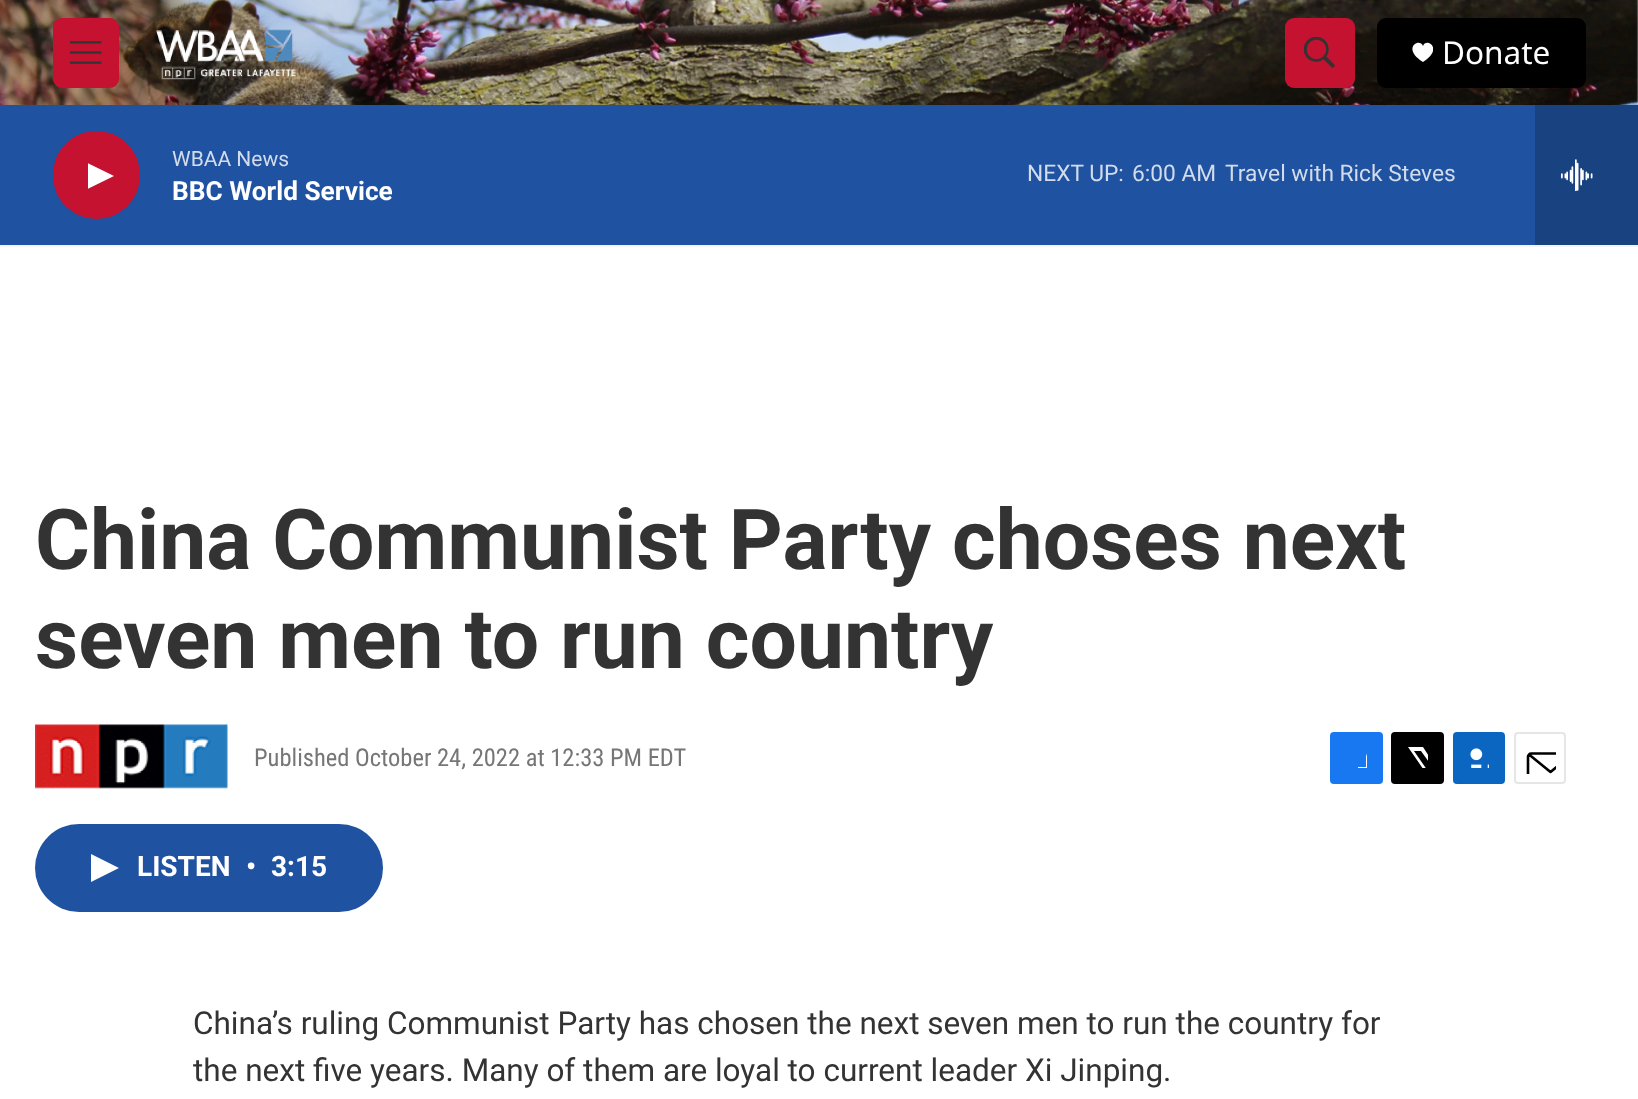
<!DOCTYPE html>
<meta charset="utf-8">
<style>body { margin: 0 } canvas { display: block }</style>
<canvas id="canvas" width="1638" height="1099"></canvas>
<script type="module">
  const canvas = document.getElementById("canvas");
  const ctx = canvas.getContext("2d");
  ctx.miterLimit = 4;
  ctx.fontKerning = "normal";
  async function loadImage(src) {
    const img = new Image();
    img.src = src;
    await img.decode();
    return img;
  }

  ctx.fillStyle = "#ffffff";
  ctx.fillRect(0, 0, 1638, 1099);
  ctx.fillStyle = "#f5f5f5";
  ctx.fillRect(0, 245, 1638, 2);
  ctx.drawImage(await loadImage("img1.png"), 0, 0, 1638, 105);
  ctx.fillStyle = "#c41230";
  ctx.beginPath();
  ctx.roundRect(53, 18, 66, 70, 9);
  ctx.fill();
  ctx.drawImage(await loadImage("img2.png"), 70, 41, 32, 23);
  ctx.drawImage(await loadImage("img3.png"), 156, 29, 140, 51);
  ctx.beginPath();
  ctx.roundRect(1285, 18, 70, 70, 9);
  ctx.fill();
  ctx.drawImage(await loadImage("img4.png"), 1304, 37, 31, 31);
  ctx.fillStyle = "#000000";
  ctx.beginPath();
  ctx.roundRect(1377, 18, 209, 70, 9);
  ctx.fill();
  ctx.save();
  ctx.beginPath();
  ctx.rect(1412, 42, 21, 21);
  ctx.clip();
  ctx.fillStyle = "#ffffff";
  ctx.beginPath();
  ctx.moveTo(1423, 46);
  ctx.bezierCurveTo(1419.5, 37, 1401, 48.5, 1423, 62);
  ctx.bezierCurveTo(1444.5, 48.5, 1426, 37, 1423, 46);
  ctx.closePath();
  ctx.fill();
  ctx.restore();
  ctx.font = "31.5px Noto Sans";
  ctx.fillStyle = "#ffffff";
  ctx.fillText("Donate", 1442, 64);
  ctx.fillStyle = "#1f52a1";
  ctx.fillRect(0, 105, 1535, 140);
  ctx.fillStyle = "#c41230";
  ctx.beginPath();
  ctx.roundRect(53, 131, 87, 88, 43.5);
  ctx.fill();
  ctx.save();
  ctx.beginPath();
  ctx.rect(88, 159, 26, 34);
  ctx.clip();
  ctx.fillStyle = "#ffffff";
  ctx.beginPath();
  ctx.moveTo(87.5, 163);
  ctx.lineTo(114, 176);
  ctx.lineTo(87.5, 189);
  ctx.closePath();
  ctx.fill();
  ctx.restore();
  ctx.font = "21px Roboto";
  ctx.fillStyle = "#d2dcec";
  ctx.fillText("WBAA News", 172, 166);
  ctx.font = "bold 26.25px 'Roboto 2'";
  ctx.fillStyle = "#ffffff";
  ctx.fillText("BBC World Service", 172, 200);
  ctx.font = "22.75px Roboto";
  ctx.fillStyle = "#d2dcec";
  ctx.fillText("NEXT UP:", 1027, 181);
  ctx.fillText("6:00 AM", 1132, 181);
  ctx.fillText("Travel with Rick Steves", 1225, 181);
  ctx.fillStyle = "#194281";
  ctx.fillRect(1535, 105, 103, 140);
  ctx.drawImage(await loadImage("img5.png"), 1561, 159, 32, 32);
  ctx.font = "bold 84px Roboto";
  ctx.fillStyle = "#333333";
  ctx.fillText("China Communist Party choses next", 35, 569);
  ctx.fillText("seven men to run country", 35, 668);
  ctx.drawImage(await loadImage("img6.png"), 35, 724, 193, 65);
  ctx.font = "24.5px Roboto Condensed";
  ctx.fillStyle = "#767676";
  ctx.fillText("Published October 24, 2022 at 12:33 PM EDT", 254, 766);
  ctx.fillStyle = "#1778f2";
  ctx.beginPath();
  ctx.roundRect(1330, 732, 53, 52, 4);
  ctx.fill();
  ctx.save();
  ctx.beginPath();
  ctx.rect(1346, 747, 21, 21);
  ctx.clip();
  ctx.fillStyle = "#ffffff";
  ctx.beginPath();
  ctx.moveTo(1375, 784);
  ctx.lineTo(1366, 784);
  ctx.lineTo(1366, 775);
  ctx.lineTo(1358, 775);
  ctx.lineTo(1358, 767);
  ctx.lineTo(1366, 767);
  ctx.lineTo(1366, 757);
  ctx.bezierCurveTo(1367, 748.5, 1375.5, 747, 1383, 748);
  ctx.lineTo(1383, 756);
  ctx.bezierCurveTo(1373, 756, 1375, 759, 1375, 767);
  ctx.lineTo(1383, 767);
  ctx.lineTo(1382, 775);
  ctx.lineTo(1375, 775);
  ctx.closePath();
  ctx.fill();
  ctx.restore();
  ctx.fillStyle = "#000000";
  ctx.beginPath();
  ctx.roundRect(1391, 732, 53, 52, 4);
  ctx.fill();
  ctx.save();
  ctx.beginPath();
  ctx.rect(1407, 747, 21, 21);
  ctx.clip();
  ctx.fillStyle = "#ffffff";
  ctx.beginPath();
  ctx.moveTo(1438, 769);
  ctx.lineTo(1444, 778);
  ctx.bezierCurveTo(1444, 779.5, 1444, 781, 1443.5, 782.5);
  ctx.lineTo(1421, 751);
  ctx.lineTo(1414, 751);
  ctx.lineTo(1432, 777);
  ctx.lineTo(1437, 784);
  ctx.lineTo(1433.5, 784);
  ctx.lineTo(1430, 779);
  ctx.lineTo(1425.5, 784);
  ctx.lineTo(1421.5, 784);
  ctx.lineTo(1428, 776);
  ctx.lineTo(1408, 747);
  ctx.lineTo(1423, 747);
  ctx.lineTo(1436, 767);
  ctx.lineTo(1444, 757.5);
  ctx.lineTo(1444, 762);
  ctx.closePath();
  ctx.fill();
  ctx.restore();
  ctx.fillStyle = "#0a66c1";
  ctx.beginPath();
  ctx.roundRect(1453, 732, 52, 52, 4);
  ctx.fill();
  ctx.drawImage(await loadImage("img7.png"), 1470, 748, 19, 20);
  ctx.beginPath();
  ctx.roundRect(1515, 733, 50, 50, 3);
  ctx.strokeStyle = "#e6e6e6";
  ctx.lineWidth = 2;
  ctx.stroke();
  ctx.save();
  ctx.beginPath();
  ctx.rect(1524, 742, 32, 32);
  ctx.clip();
  ctx.beginPath();
  ctx.moveTo(1573, 780.5);
  ctx.bezierCurveTo(1573, 782, 1571.5, 783.5, 1570, 783.5);
  ctx.lineTo(1531, 783.5);
  ctx.bezierCurveTo(1529.5, 783.5, 1528, 782, 1528, 780.5);
  ctx.lineTo(1528, 757);
  ctx.bezierCurveTo(1528, 755, 1529.5, 753.5, 1531, 753.5);
  ctx.lineTo(1570, 753.5);
  ctx.bezierCurveTo(1571.5, 753.5, 1573, 755, 1573, 757);
  ctx.closePath();
  ctx.moveTo(1572, 754.5);
  ctx.lineTo(1550.5, 772);
  ctx.lineTo(1529, 754.5);
  ctx.strokeStyle = "#000000";
  ctx.lineWidth = 2.6;
  ctx.lineCap = "round";
  ctx.lineJoin = "round";
  ctx.stroke();
  ctx.restore();
  ctx.fillStyle = "#1f52a1";
  ctx.beginPath();
  ctx.roundRect(35, 824, 348, 88, 44);
  ctx.fill();
  ctx.fillStyle = "#ffffff";
  ctx.beginPath();
  ctx.moveTo(91, 854);
  ctx.lineTo(119, 868);
  ctx.lineTo(91, 882);
  ctx.closePath();
  ctx.fill();
  ctx.font = "bold 28px 'Roboto 2'";
  ctx.fillText("LISTEN", 137, 876);
  ctx.fillText("•", 246, 876);
  ctx.fillText("3:15", 271, 876);
  ctx.font = "31.5px Roboto";
  ctx.fillStyle = "#333333";
  ctx.fillText("China’s ruling Communist Party has chosen the next seven men to run the country for", 193, 1034);
  ctx.fillText("the next five years. Many of them are loyal to current leader Xi Jinping.", 193, 1081);
</script>
